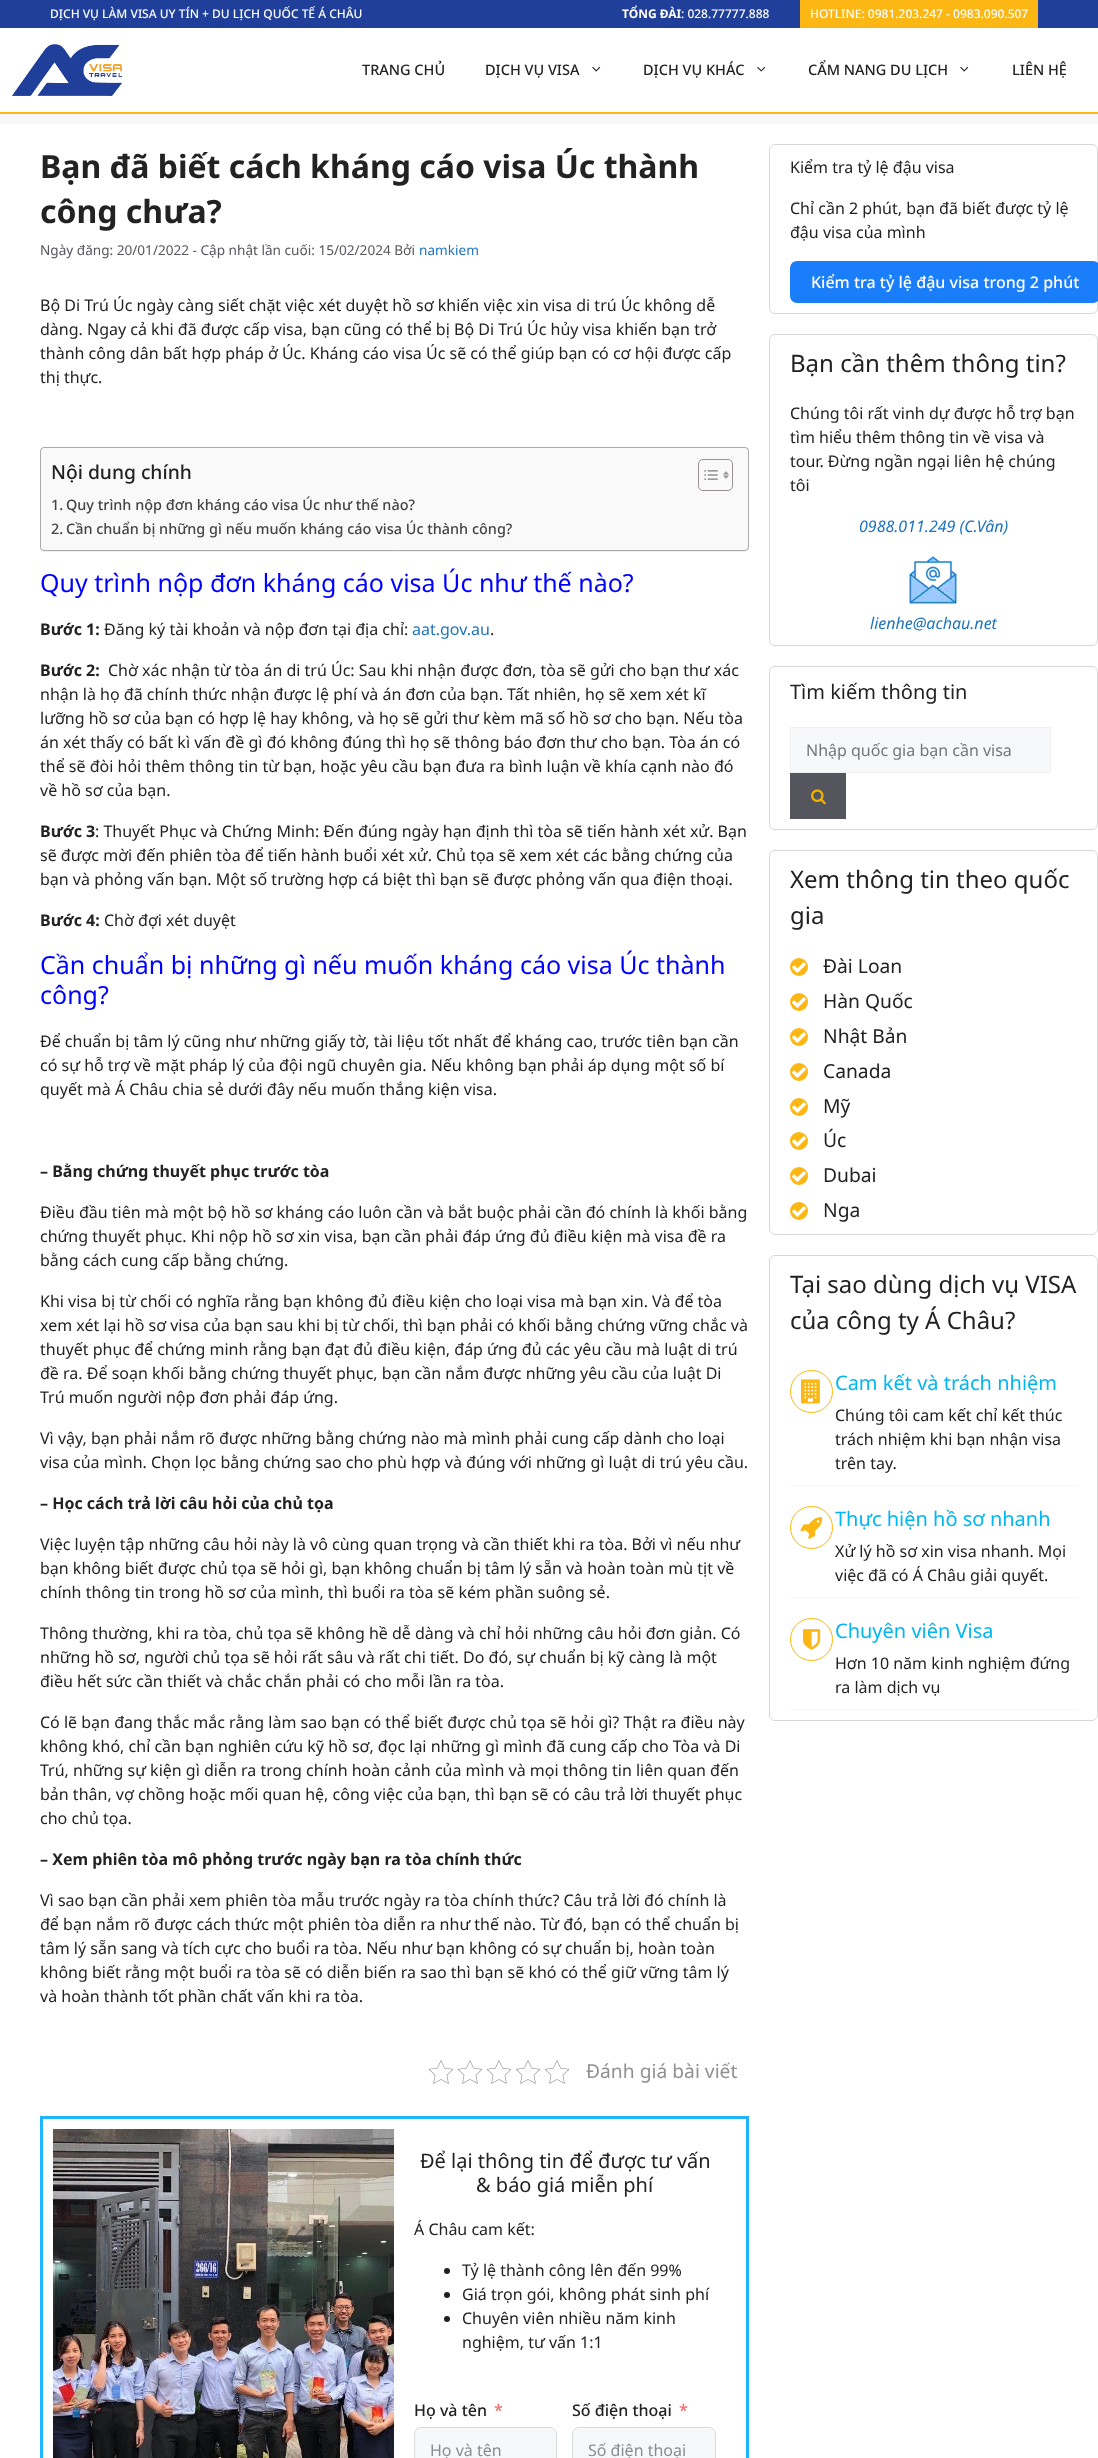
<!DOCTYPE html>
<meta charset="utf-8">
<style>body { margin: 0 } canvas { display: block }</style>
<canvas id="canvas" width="1098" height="2458"></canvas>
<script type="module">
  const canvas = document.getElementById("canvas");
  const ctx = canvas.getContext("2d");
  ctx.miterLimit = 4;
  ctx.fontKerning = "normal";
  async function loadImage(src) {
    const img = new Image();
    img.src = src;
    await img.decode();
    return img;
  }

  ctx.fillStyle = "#ffffff";
  ctx.fillRect(0, 0, 1098, 2458);
  ctx.fillStyle = "#1f3f9b";
  ctx.fillRect(0, 0, 1098, 28);
  ctx.font = "500 12px Noto Sans";
  ctx.fillStyle = "#ffffff";
  ctx.fillText("DỊCH VỤ LÀM VISA UY TÍN + DU LỊCH QUỐC TẾ Á CHÂU", 50, 18);
  ctx.font = "bold 12px Noto Sans";
  ctx.fillText("TỔNG ĐÀI", 622, 18);
  ctx.font = "500 12px Noto Sans";
  ctx.fillText(": 028.77777.888", 681, 18);
  ctx.fillStyle = "#fdb714";
  ctx.fillRect(800, 0, 238, 28);
  ctx.fillStyle = "#ffffff";
  ctx.fillText("HOTLINE: 0981.203.247 - 0983.090.507", 810, 18);
  ctx.fillStyle = "#fdb716";
  ctx.fillRect(0, 112, 1098, 2);
  ctx.drawImage(await loadImage("img1.png"), 12, 44, 110, 52);
  ctx.font = "500 14.5px Noto Sans";
  ctx.fillStyle = "#222222";
  ctx.fillText("TRANG CHỦ", 362, 75);
  ctx.fillText("DỊCH VỤ VISA", 485, 75);
  ctx.drawImage(await loadImage("img2.png"), 592, 66, 9, 6);
  ctx.fillText("DỊCH VỤ KHÁC", 643, 75);
  ctx.drawImage(await loadImage("img2.png"), 757, 66, 9, 6);
  ctx.fillText("CẨM NANG DU LỊCH", 808, 75);
  ctx.drawImage(await loadImage("img2.png"), 960, 66, 9, 6);
  ctx.fillText("LIÊN HỆ", 1012, 75);
  ctx.fillStyle = "#f8f8f8";
  ctx.fillRect(0, 114, 1098, 10);
  ctx.font = "bold 32px Noto Sans";
  ctx.fillStyle = "#222222";
  ctx.fillText("Bạn đã biết cách kháng cáo visa Úc thành", 40, 178);
  ctx.fillText("công chưa?", 40, 223);
  ctx.font = "13.6px Noto Sans";
  ctx.fillStyle = "#575760";
  ctx.fillText("Ngày đăng: 20/01/2022 - Cập nhật lần cuối: 15/02/2024 Bởi", 40, 255);
  ctx.fillStyle = "#1e73be";
  ctx.fillText("namkiem", 419, 255);
  ctx.font = "16px Noto Sans";
  ctx.fillStyle = "#222222";
  ctx.fillText("Bộ Di Trú Úc ngày càng siết chặt việc xét duyệt hồ sơ khiến việc xin visa di trú Úc không dễ", 40, 311);
  ctx.fillText("dàng. Ngay cả khi đã được cấp visa, bạn cũng có thể bị Bộ Di Trú Úc hủy visa khiến bạn trở", 40, 335);
  ctx.fillText("thành công dân bất hợp pháp ở Úc. Kháng cáo visa Úc sẽ có thể giúp bạn có cơ hội được cấp", 40, 359);
  ctx.fillText("thị thực.", 40, 383);
  ctx.fillStyle = "rgba(0, 0, 0, 0.05)";
  ctx.filter = "blur(0.5px)";
  ctx.beginPath();
  ctx.roundRect(40, 448, 709, 104, 4);
  ctx.fill();
  ctx.filter = "none";
  ctx.fillStyle = "#f9f9f9";
  ctx.beginPath();
  ctx.roundRect(40.5, 447.5, 708, 103, 3.5);
  ctx.fill();
  ctx.strokeStyle = "#aaaaaa";
  ctx.stroke();
  ctx.font = "500 19.25px Noto Sans";
  ctx.fillStyle = "#222222";
  ctx.fillText("Nội dung chính", 51, 479);
  ctx.beginPath();
  ctx.roundRect(698.5, 459.5, 34, 31, 4.5);
  ctx.strokeStyle = "#999191";
  ctx.stroke();
  ctx.drawImage(await loadImage("img3.png"), 704, 470, 14, 10);
  ctx.drawImage(await loadImage("img4.png"), 723, 471, 6, 8);
  ctx.font = "500 14.45px Noto Sans";
  ctx.fillStyle = "#444444";
  ctx.fillText("1.", 51, 510);
  ctx.fillText("Quy trình nộp đơn kháng cáo visa Úc như thế nào?", 66, 510);
  ctx.fillText("2.", 51, 534);
  ctx.fillText("Cần chuẩn bị những gì nếu muốn kháng cáo visa Úc thành công?", 66, 534);
  ctx.font = "25px Noto Sans";
  ctx.fillStyle = "#0000ff";
  ctx.fillText("Quy trình nộp đơn kháng cáo visa Úc như thế nào?", 40, 592);
  ctx.font = "bold 16px Noto Sans";
  ctx.fillStyle = "#222222";
  ctx.fillText("Bước 1:", 40, 635);
  ctx.font = "16px Noto Sans";
  ctx.fillText("Đăng ký tài khoản và nộp đơn tại địa chỉ:", 104, 635);
  ctx.fillStyle = "#1e73be";
  ctx.fillText("aat.gov.au", 412, 635);
  ctx.fillStyle = "#222222";
  ctx.fillText(".", 490, 635);
  ctx.font = "bold 16px Noto Sans";
  ctx.fillText("Bước 2:", 40, 676);
  ctx.font = "16px Noto Sans";
  ctx.fillText("Chờ xác nhận từ tòa án di trú Úc: Sau khi nhận được đơn, tòa sẽ gửi cho bạn thư xác", 108, 676);
  ctx.fillText("nhận là họ đã chính thức nhận được lệ phí và án đơn của bạn. Tất nhiên, họ sẽ xem xét kĩ", 40, 700);
  ctx.fillText("lưỡng hồ sơ của bạn có hợp lệ hay không, và họ sẽ gửi thư kèm mã số hồ sơ cho bạn. Nếu tòa", 40, 724);
  ctx.fillText("án xét thấy có bất kì vấn đề gì đó không đúng thì họ sẽ thông báo đơn thư cho bạn. Tòa án có", 40, 748);
  ctx.fillText("thể sẽ đòi hỏi thêm thông tin từ bạn, hoặc yêu cầu bạn đưa ra bình luận về khía cạnh nào đó", 40, 772);
  ctx.fillText("về hồ sơ của bạn.", 40, 796);
  ctx.font = "bold 16px Noto Sans";
  ctx.fillText("Bước 3", 40, 837);
  ctx.font = "16px Noto Sans";
  ctx.fillText(": Thuyết Phục và Chứng Minh: Đến đúng ngày hạn định thì tòa sẽ tiến hành xét xử. Bạn", 95, 837);
  ctx.fillText("sẽ được mời đến phiên tòa để tiến hành buổi xét xử. Chủ tọa sẽ xem xét các bằng chứng của", 40, 861);
  ctx.fillText("bạn và phỏng vấn bạn. Một số trường hợp cá biệt thì bạn sẽ được phỏng vấn qua điện thoại.", 40, 885);
  ctx.font = "bold 16px Noto Sans";
  ctx.fillText("Bước 4:", 40, 926);
  ctx.font = "16px Noto Sans";
  ctx.fillText("Chờ đợi xét duyệt", 104, 926);
  ctx.font = "25px Noto Sans";
  ctx.fillStyle = "#0000ff";
  ctx.fillText("Cần chuẩn bị những gì nếu muốn kháng cáo visa Úc thành", 40, 974);
  ctx.fillText("công?", 40, 1004);
  ctx.font = "16px Noto Sans";
  ctx.fillStyle = "#222222";
  ctx.fillText("Để chuẩn bị tâm lý cũng như những giấy tờ, tài liệu tốt nhất để kháng cao, trước tiên bạn cần", 40, 1047);
  ctx.fillText("có sự hỗ trợ về mặt pháp lý của đội ngũ chuyên gia. Nếu không bạn phải áp dụng một số bí", 40, 1071);
  ctx.fillText("quyết mà Á Châu chia sẻ dưới đây nếu muốn thắng kiện visa.", 40, 1095);
  ctx.font = "bold 16px Noto Sans";
  ctx.fillText("– Bằng chứng thuyết phục trước tòa", 40, 1177);
  ctx.font = "16px Noto Sans";
  ctx.fillText("Điều đầu tiên mà một bộ hồ sơ kháng cáo luôn cần và bắt buộc phải cần đó chính là khối bằng", 40, 1218);
  ctx.fillText("chứng thuyết phục. Khi nộp hồ sơ xin visa, bạn cần phải đáp ứng đủ điều kiện mà visa đề ra", 40, 1242);
  ctx.fillText("bằng cách cung cấp bằng chứng.", 40, 1266);
  ctx.fillText("Khi visa bị từ chối có nghĩa rằng bạn không đủ điều kiện cho loại visa mà bạn xin. Và để tòa", 40, 1307);
  ctx.fillText("xem xét lại hồ sơ visa của bạn sau khi bị từ chối, thì bạn phải có khối bằng chứng vững chắc và", 40, 1331);
  ctx.fillText("thuyết phục để chứng minh rằng bạn đạt đủ điều kiện, đáp ứng đủ các yêu cầu mà luật di trú", 40, 1355);
  ctx.fillText("đề ra. Để soạn khối bằng chứng thuyết phục, bạn cần nắm được những yêu cầu của luật Di", 40, 1379);
  ctx.fillText("Trú muốn người nộp đơn phải đáp ứng.", 40, 1403);
  ctx.fillText("Vì vậy, bạn phải nắm rõ được những bằng chứng nào mà mình phải cung cấp dành cho loại", 40, 1444);
  ctx.fillText("visa của mình. Chọn lọc bằng chứng sao cho phù hợp và đúng với những gì luật di trú yêu cầu.", 40, 1468);
  ctx.font = "bold 16px Noto Sans";
  ctx.fillText("– Học cách trả lời câu hỏi của chủ tọa", 40, 1509);
  ctx.font = "16px Noto Sans";
  ctx.fillText("Việc luyện tập những câu hỏi này là vô cùng quan trọng và cần thiết khi ra tòa. Bởi vì nếu như", 40, 1550);
  ctx.fillText("bạn không biết được chủ tọa sẽ hỏi gì, bạn không chuẩn bị tâm lý sẵn và hoàn toàn mù tịt về", 40, 1574);
  ctx.fillText("chính thông tin trong hồ sơ của mình, thì buổi ra tòa sẽ kém phần suông sẻ.", 40, 1598);
  ctx.fillText("Thông thường, khi ra tòa, chủ tọa sẽ không hề dễ dàng và chỉ hỏi những câu hỏi đơn giản. Có", 40, 1639);
  ctx.fillText("những hồ sơ, người chủ tọa sẽ hỏi rất sâu và rất chi tiết. Do đó, sự chuẩn bị kỹ càng là một", 40, 1663);
  ctx.fillText("điều hết sức cần thiết và chắc chắn phải có cho mỗi lần ra tòa.", 40, 1687);
  ctx.fillText("Có lẽ bạn đang thắc mắc rằng làm sao bạn có thể biết được chủ tọa sẽ hỏi gì? Thật ra điều này", 40, 1728);
  ctx.fillText("không khó, chỉ cần bạn nghiên cứu kỹ hồ sơ, đọc lại những gì mình đã cung cấp cho Tòa và Di", 40, 1752);
  ctx.fillText("Trú, những sự kiện gì diễn ra trong chính hoàn cảnh của mình và mọi thông tin liên quan đến", 40, 1776);
  ctx.fillText("bản thân, vợ chồng hoặc mối quan hệ, công việc của bạn, thì bạn sẽ có câu trả lời thuyết phục", 40, 1800);
  ctx.fillText("cho chủ tọa.", 40, 1824);
  ctx.font = "bold 16px Noto Sans";
  ctx.fillText("– Xem phiên tòa mô phỏng trước ngày bạn ra tòa chính thức", 40, 1865);
  ctx.font = "16px Noto Sans";
  ctx.fillText("Vì sao bạn cần phải xem phiên tòa mẫu trước ngày ra tòa chính thức? Câu trả lời đó chính là", 40, 1906);
  ctx.fillText("để bạn nắm rõ được cách thức một phiên tòa diễn ra như thế nào. Từ đó, bạn có thể chuẩn bị", 40, 1930);
  ctx.fillText("tâm lý sẵn sang và tích cực cho buổi ra tòa. Nếu như bạn không có sự chuẩn bị, hoàn toàn", 40, 1954);
  ctx.fillText("không biết rằng một buổi ra tòa sẽ có diễn biến ra sao thì bạn sẽ khó có thể giữ vững tâm lý", 40, 1978);
  ctx.fillText("và hoàn thành tốt phần chất vấn khi ra tòa.", 40, 2002);
  ctx.drawImage(await loadImage("img5.png"), 429, 2060, 24, 24);
  ctx.drawImage(await loadImage("img5.png"), 458, 2060, 24, 24);
  ctx.drawImage(await loadImage("img5.png"), 487, 2060, 24, 24);
  ctx.drawImage(await loadImage("img5.png"), 516, 2060, 24, 24);
  ctx.drawImage(await loadImage("img5.png"), 545, 2060, 24, 24);
  ctx.font = "19.25px Noto Sans";
  ctx.fillStyle = "#919191";
  ctx.fillText("Đánh giá bài viết", 586, 2078);
  ctx.strokeStyle = "#1fb6ff";
  ctx.lineWidth = 3;
  ctx.strokeRect(41.5, 2117.5, 706, 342);
  ctx.drawImage(await loadImage("img6.png"), 53, 2129, 341, 329);
  ctx.font = "20px Noto Sans";
  ctx.fillStyle = "#222222";
  ctx.fillText("Để lại thông tin để được tư vấn", 420, 2168);
  ctx.fillText("& báo giá miễn phí", 476, 2192);
  ctx.font = "16px Noto Sans";
  ctx.fillText("Á Châu cam kết:", 414, 2235);
  ctx.beginPath();
  ctx.arc(447, 2271, 3, 0, Math.PI * 2);
  ctx.fill();
  ctx.fillText("Tỷ lệ thành công lên đến 99%", 462, 2276);
  ctx.beginPath();
  ctx.arc(447, 2295, 3, 0, Math.PI * 2);
  ctx.fill();
  ctx.fillText("Giá trọn gói, không phát sinh phí", 462, 2300);
  ctx.beginPath();
  ctx.arc(447, 2319, 3, 0, Math.PI * 2);
  ctx.fill();
  ctx.fillText("Chuyên viên nhiều năm kinh", 462, 2324);
  ctx.fillText("nghiệm, tư vấn 1:1", 462, 2348);
  ctx.font = "500 16px Noto Sans";
  ctx.fillText("Họ và tên", 414, 2416);
  ctx.fillStyle = "#f56c6c";
  ctx.fillText("*", 494, 2416);
  ctx.fillStyle = "#f7f8f9";
  ctx.beginPath();
  ctx.roundRect(415, 2428, 141, 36, 6);
  ctx.fill();
  ctx.beginPath();
  ctx.roundRect(414.5, 2427.5, 142, 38, 6.5);
  ctx.strokeStyle = "#dadbdd";
  ctx.lineWidth = 1;
  ctx.stroke();
  ctx.font = "16px Noto Sans";
  ctx.fillStyle = "#868e96";
  ctx.fillText("Họ và tên", 430, 2456);
  ctx.font = "500 16px Noto Sans";
  ctx.fillStyle = "#222222";
  ctx.fillText("Số điện thoại", 572, 2416);
  ctx.fillStyle = "#f56c6c";
  ctx.fillText("*", 679, 2416);
  ctx.fillStyle = "#f7f8f9";
  ctx.beginPath();
  ctx.roundRect(573, 2428, 142, 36, 6);
  ctx.fill();
  ctx.beginPath();
  ctx.roundRect(572.5, 2427.5, 143, 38, 6.5);
  ctx.stroke();
  ctx.font = "16px Noto Sans";
  ctx.fillStyle = "#868e96";
  ctx.fillText("Số điện thoại", 588, 2456);
  ctx.beginPath();
  ctx.roundRect(769.5, 144.5, 328, 169, 5.5);
  ctx.strokeStyle = "#d8d8d8";
  ctx.stroke();
  ctx.fillStyle = "#222222";
  ctx.fillText("Kiểm tra tỷ lệ đậu visa", 790, 173);
  ctx.fillText("Chỉ cần 2 phút, bạn đã biết được tỷ lệ", 790, 214);
  ctx.fillText("đậu visa của mình", 790, 238);
  ctx.fillStyle = "#1a7efb";
  ctx.beginPath();
  ctx.roundRect(790, 261, 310, 42, 7);
  ctx.fill();
  ctx.font = "500 16px Noto Sans";
  ctx.fillStyle = "#ffffff";
  ctx.fillText("Kiểm tra tỷ lệ đậu visa trong 2 phút", 811, 288);
  ctx.beginPath();
  ctx.roundRect(769.5, 334.5, 328, 311, 5.5);
  ctx.stroke();
  ctx.font = "24px Noto Sans";
  ctx.fillStyle = "#222222";
  ctx.fillText("Bạn cần thêm thông tin?", 790, 372);
  ctx.font = "16px Noto Sans";
  ctx.fillText("Chúng tôi rất vinh dự được hỗ trợ bạn", 790, 419);
  ctx.fillText("tìm hiểu thêm thông tin về visa và", 790, 443);
  ctx.fillText("tour. Đừng ngần ngại liên hệ chúng", 790, 467);
  ctx.fillText("tôi", 790, 491);
  ctx.font = "italic 16px Noto Sans";
  ctx.fillStyle = "#1e73be";
  ctx.fillText("0988.011.249 (C.Vân)", 859, 532);
  ctx.drawImage(await loadImage("img7.png"), 909, 556, 48, 48);
  ctx.fillText("lienhe@achau.net", 870, 629);
  ctx.beginPath();
  ctx.roundRect(769.5, 666.5, 328, 163, 5.5);
  ctx.stroke();
  ctx.font = "20px Noto Sans";
  ctx.fillStyle = "#222222";
  ctx.fillText("Tìm kiếm thông tin", 790, 699);
  ctx.fillStyle = "#f7f8f9";
  ctx.beginPath();
  ctx.rect(790.5, 727.5, 260, 45);
  ctx.fill();
  ctx.strokeStyle = "#f0f0f0";
  ctx.stroke();
  ctx.font = "16px Noto Sans";
  ctx.fillStyle = "#757575";
  ctx.fillText("Nhập quốc gia bạn cần visa", 806, 756);
  ctx.fillStyle = "#55555e";
  ctx.fillRect(790, 773, 56, 46);
  ctx.drawImage(await loadImage("img8.png"), 811, 789, 15, 16);
  ctx.beginPath();
  ctx.roundRect(769.5, 850.5, 328, 384, 5.5);
  ctx.strokeStyle = "#d8d8d8";
  ctx.stroke();
  ctx.font = "24px Noto Sans";
  ctx.fillStyle = "#222222";
  ctx.fillText("Xem thông tin theo quốc", 790, 888);
  ctx.fillText("gia", 790, 924);
  ctx.fillStyle = "#fdb714";
  ctx.beginPath();
  ctx.arc(799, 967, 9, 0, Math.PI * 2);
  ctx.fill();
  ctx.drawImage(await loadImage("img9.png"), 792, 962, 14, 11);
  ctx.font = "19.25px Noto Sans";
  ctx.fillStyle = "#222222";
  ctx.fillText("Đài Loan", 823, 973);
  ctx.fillStyle = "#fdb714";
  ctx.beginPath();
  ctx.arc(799, 1002, 9, 0, Math.PI * 2);
  ctx.fill();
  ctx.drawImage(await loadImage("img9.png"), 792, 997, 14, 11);
  ctx.fillStyle = "#222222";
  ctx.fillText("Hàn Quốc", 823, 1008);
  ctx.fillStyle = "#fdb714";
  ctx.beginPath();
  ctx.arc(799, 1037, 9, 0, Math.PI * 2);
  ctx.fill();
  ctx.drawImage(await loadImage("img9.png"), 792, 1032, 14, 11);
  ctx.fillStyle = "#222222";
  ctx.fillText("Nhật Bản", 823, 1043);
  ctx.fillStyle = "#fdb714";
  ctx.beginPath();
  ctx.arc(799, 1072, 9, 0, Math.PI * 2);
  ctx.fill();
  ctx.drawImage(await loadImage("img9.png"), 792, 1067, 14, 11);
  ctx.fillStyle = "#222222";
  ctx.fillText("Canada", 823, 1078);
  ctx.fillStyle = "#fdb714";
  ctx.beginPath();
  ctx.arc(799, 1107, 9, 0, Math.PI * 2);
  ctx.fill();
  ctx.drawImage(await loadImage("img9.png"), 792, 1102, 14, 11);
  ctx.fillStyle = "#222222";
  ctx.fillText("Mỹ", 823, 1113);
  ctx.fillStyle = "#fdb714";
  ctx.beginPath();
  ctx.arc(799, 1141, 9, 0, Math.PI * 2);
  ctx.fill();
  ctx.drawImage(await loadImage("img9.png"), 792, 1136, 14, 11);
  ctx.fillStyle = "#222222";
  ctx.fillText("Úc", 823, 1147);
  ctx.fillStyle = "#fdb714";
  ctx.beginPath();
  ctx.arc(799, 1176, 9, 0, Math.PI * 2);
  ctx.fill();
  ctx.drawImage(await loadImage("img9.png"), 792, 1171, 14, 11);
  ctx.fillStyle = "#222222";
  ctx.fillText("Dubai", 823, 1182);
  ctx.fillStyle = "#fdb714";
  ctx.beginPath();
  ctx.arc(799, 1211, 9, 0, Math.PI * 2);
  ctx.fill();
  ctx.drawImage(await loadImage("img9.png"), 792, 1206, 14, 11);
  ctx.fillStyle = "#222222";
  ctx.fillText("Nga", 823, 1217);
  ctx.beginPath();
  ctx.roundRect(769.5, 1255.5, 328, 465, 5.5);
  ctx.stroke();
  ctx.font = "24px Noto Sans";
  ctx.fillText("Tại sao dùng dịch vụ VISA", 790, 1293);
  ctx.fillText("của công ty Á Châu?", 790, 1329);
  ctx.fillStyle = "#f5f5f5";
  ctx.fillRect(790, 1485, 287, 1);
  ctx.beginPath();
  ctx.arc(811.5, 1391.5, 21, 0, Math.PI * 2);
  ctx.strokeStyle = "#fdb714";
  ctx.stroke();
  ctx.drawImage(await loadImage("img10.png"), 801, 1379, 19, 25);
  ctx.font = "20px Noto Sans";
  ctx.fillStyle = "#01b7f2";
  ctx.fillText("Cam kết và trách nhiệm", 835, 1390);
  ctx.font = "16px Noto Sans";
  ctx.fillStyle = "#222222";
  ctx.fillText("Chúng tôi cam kết chỉ kết thúc", 835, 1421);
  ctx.fillText("trách nhiệm khi bạn nhận visa", 835, 1445);
  ctx.fillText("trên tay.", 835, 1469);
  ctx.fillStyle = "#f5f5f5";
  ctx.fillRect(790, 1597, 287, 1);
  ctx.beginPath();
  ctx.arc(811.5, 1527.5, 21, 0, Math.PI * 2);
  ctx.stroke();
  ctx.drawImage(await loadImage("img11.png"), 800, 1517, 23, 22);
  ctx.font = "20px Noto Sans";
  ctx.fillStyle = "#01b7f2";
  ctx.fillText("Thực hiện hồ sơ nhanh", 835, 1526);
  ctx.font = "16px Noto Sans";
  ctx.fillStyle = "#222222";
  ctx.fillText("Xử lý hồ sơ xin visa nhanh. Mọi", 835, 1557);
  ctx.fillText("việc đã có Á Châu giải quyết.", 835, 1581);
  ctx.fillStyle = "#f5f5f5";
  ctx.fillRect(790, 1709, 287, 1);
  ctx.beginPath();
  ctx.arc(811.5, 1639.5, 21, 0, Math.PI * 2);
  ctx.stroke();
  ctx.drawImage(await loadImage("img12.png"), 803, 1629, 18, 21);
  ctx.font = "20px Noto Sans";
  ctx.fillStyle = "#01b7f2";
  ctx.fillText("Chuyên viên Visa", 835, 1638);
  ctx.font = "16px Noto Sans";
  ctx.fillStyle = "#222222";
  ctx.fillText("Hơn 10 năm kinh nghiệm đứng", 835, 1669);
  ctx.fillText("ra làm dịch vụ", 835, 1693);
</script>
